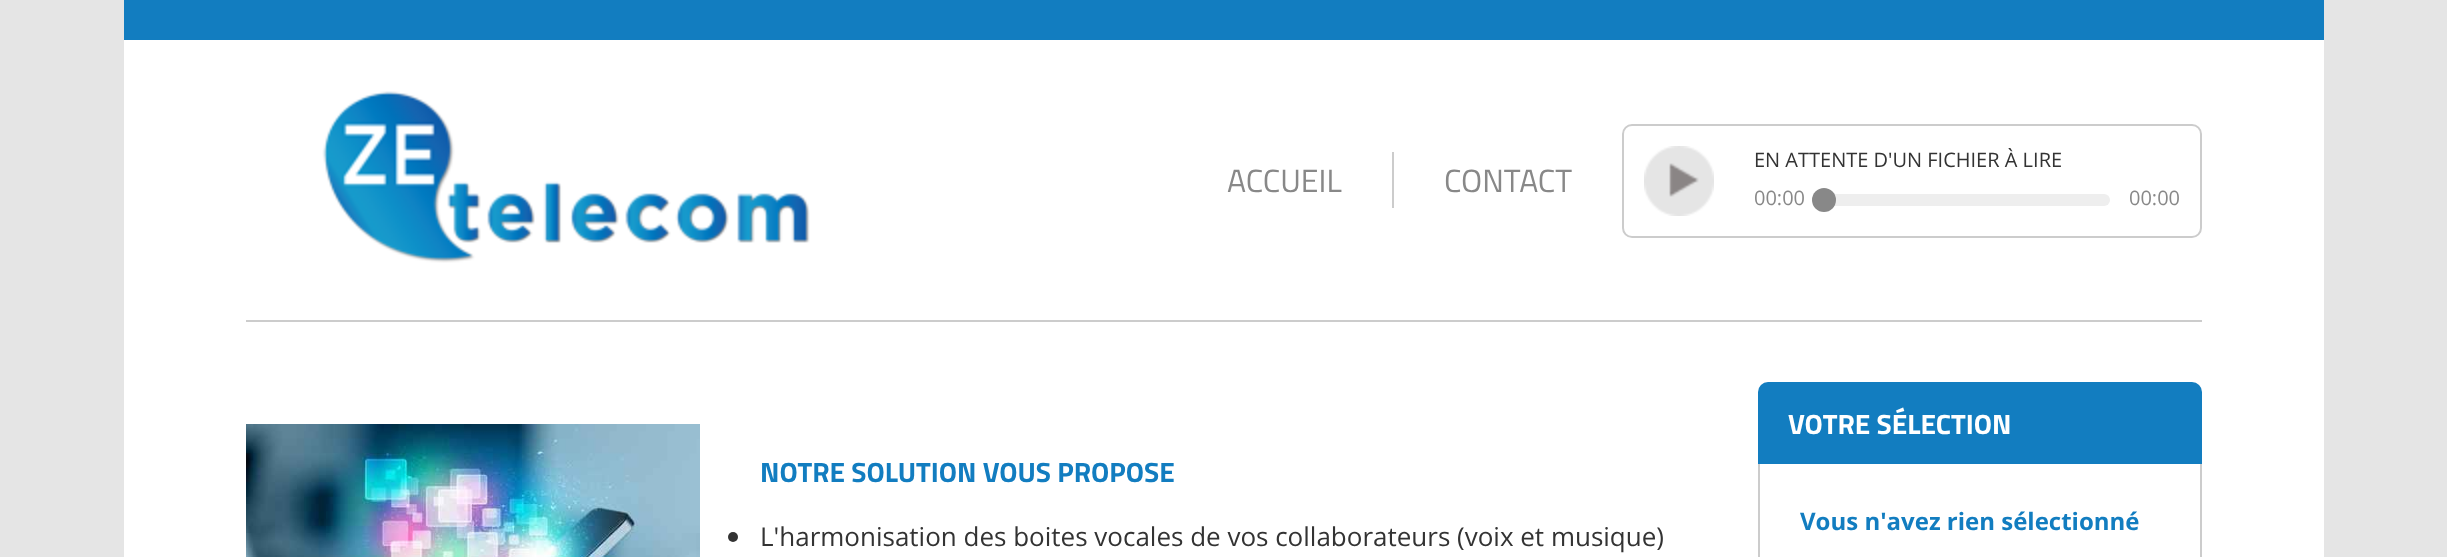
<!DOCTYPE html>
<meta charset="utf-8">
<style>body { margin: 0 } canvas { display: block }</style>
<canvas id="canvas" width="2447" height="557"></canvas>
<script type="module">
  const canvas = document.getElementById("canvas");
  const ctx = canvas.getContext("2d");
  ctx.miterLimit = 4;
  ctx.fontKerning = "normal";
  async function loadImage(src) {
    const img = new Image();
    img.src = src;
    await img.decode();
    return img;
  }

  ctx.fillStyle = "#e5e5e5";
  ctx.fillRect(0, 0, 2447, 557);
  ctx.fillStyle = "#ffffff";
  ctx.fillRect(124, 40, 2200, 517);
  ctx.fillStyle = "#127dc0";
  ctx.fillRect(124, 0, 2200, 40);
  ctx.fillStyle = "#cccccc";
  ctx.fillRect(246, 320, 1956, 2);
  ctx.drawImage(await loadImage("img1.png"), 322, 91, 488, 172);
  ctx.font = "32px Titillium Web";
  ctx.fillStyle = "#888888";
  ctx.fillText("ACCUEIL", 1227, 192);
  ctx.fillStyle = "#cccccc";
  ctx.fillRect(1392, 152, 2, 56);
  ctx.fillStyle = "#888888";
  ctx.fillText("CONTACT", 1444, 192);
  ctx.beginPath();
  ctx.roundRect(1623, 125, 578, 112, 9);
  ctx.strokeStyle = "#cccccc";
  ctx.lineWidth = 2;
  ctx.stroke();
  ctx.drawImage(await loadImage("img2.png"), 1644, 146, 70, 70);
  ctx.font = "20px Open Sans";
  ctx.fillStyle = "#333333";
  ctx.fillText("EN ATTENTE D'UN FICHIER À LIRE", 1754, 167);
  ctx.fillStyle = "#888888";
  ctx.fillText("00:00", 1754, 205);
  ctx.fillStyle = "#eeeeee";
  ctx.beginPath();
  ctx.roundRect(1824, 194, 286, 12, 6);
  ctx.fill();
  ctx.fillStyle = "#888888";
  ctx.beginPath();
  ctx.arc(1824, 200, 12, 0, Math.PI * 2);
  ctx.fill();
  ctx.fillText("00:00", 2129, 205);
  ctx.drawImage(await loadImage("img3.png"), 246, 424, 454, 133);
  ctx.font = "bold 28px Titillium Web";
  ctx.fillStyle = "#127dc0";
  ctx.fillText("NOTRE SOLUTION VOUS PROPOSE", 760, 482);
  ctx.fillStyle = "#333333";
  ctx.beginPath();
  ctx.arc(733, 537, 5, 0, Math.PI * 2);
  ctx.fill();
  ctx.font = "26px Open Sans";
  ctx.fillText("L'harmonisation des boites vocales de vos collaborateurs (voix et musique)", 760, 546);
  ctx.fillStyle = "#127dc0";
  ctx.beginPath();
  ctx.roundRect(1758, 382, 444, 82, [10, 10, 0, 0]);
  ctx.fill();
  ctx.font = "bold 28px Titillium Web";
  ctx.fillStyle = "#ffffff";
  ctx.fillText("VOTRE SÉLECTION", 1788, 434);
  ctx.fillStyle = "#cccccc";
  ctx.beginPath();
  ctx.moveTo(1758, 464);
  ctx.lineTo(2202, 464);
  ctx.lineTo(2202, 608);
  ctx.bezierCurveTo(2202, 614, 2198, 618, 2192, 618);
  ctx.lineTo(1768, 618);
  ctx.bezierCurveTo(1762, 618, 1758, 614, 1758, 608);
  ctx.closePath();
  ctx.moveTo(1760, 464);
  ctx.lineTo(2200, 464);
  ctx.lineTo(2200, 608);
  ctx.bezierCurveTo(2200, 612, 2196, 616, 2192, 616);
  ctx.lineTo(1768, 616);
  ctx.bezierCurveTo(1764, 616, 1760, 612, 1760, 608);
  ctx.closePath();
  ctx.fill("evenodd");
  ctx.font = "bold 24px Open Sans";
  ctx.fillStyle = "#127dc0";
  ctx.fillText("Vous n'avez rien sélectionné", 1800, 530);
</script>
